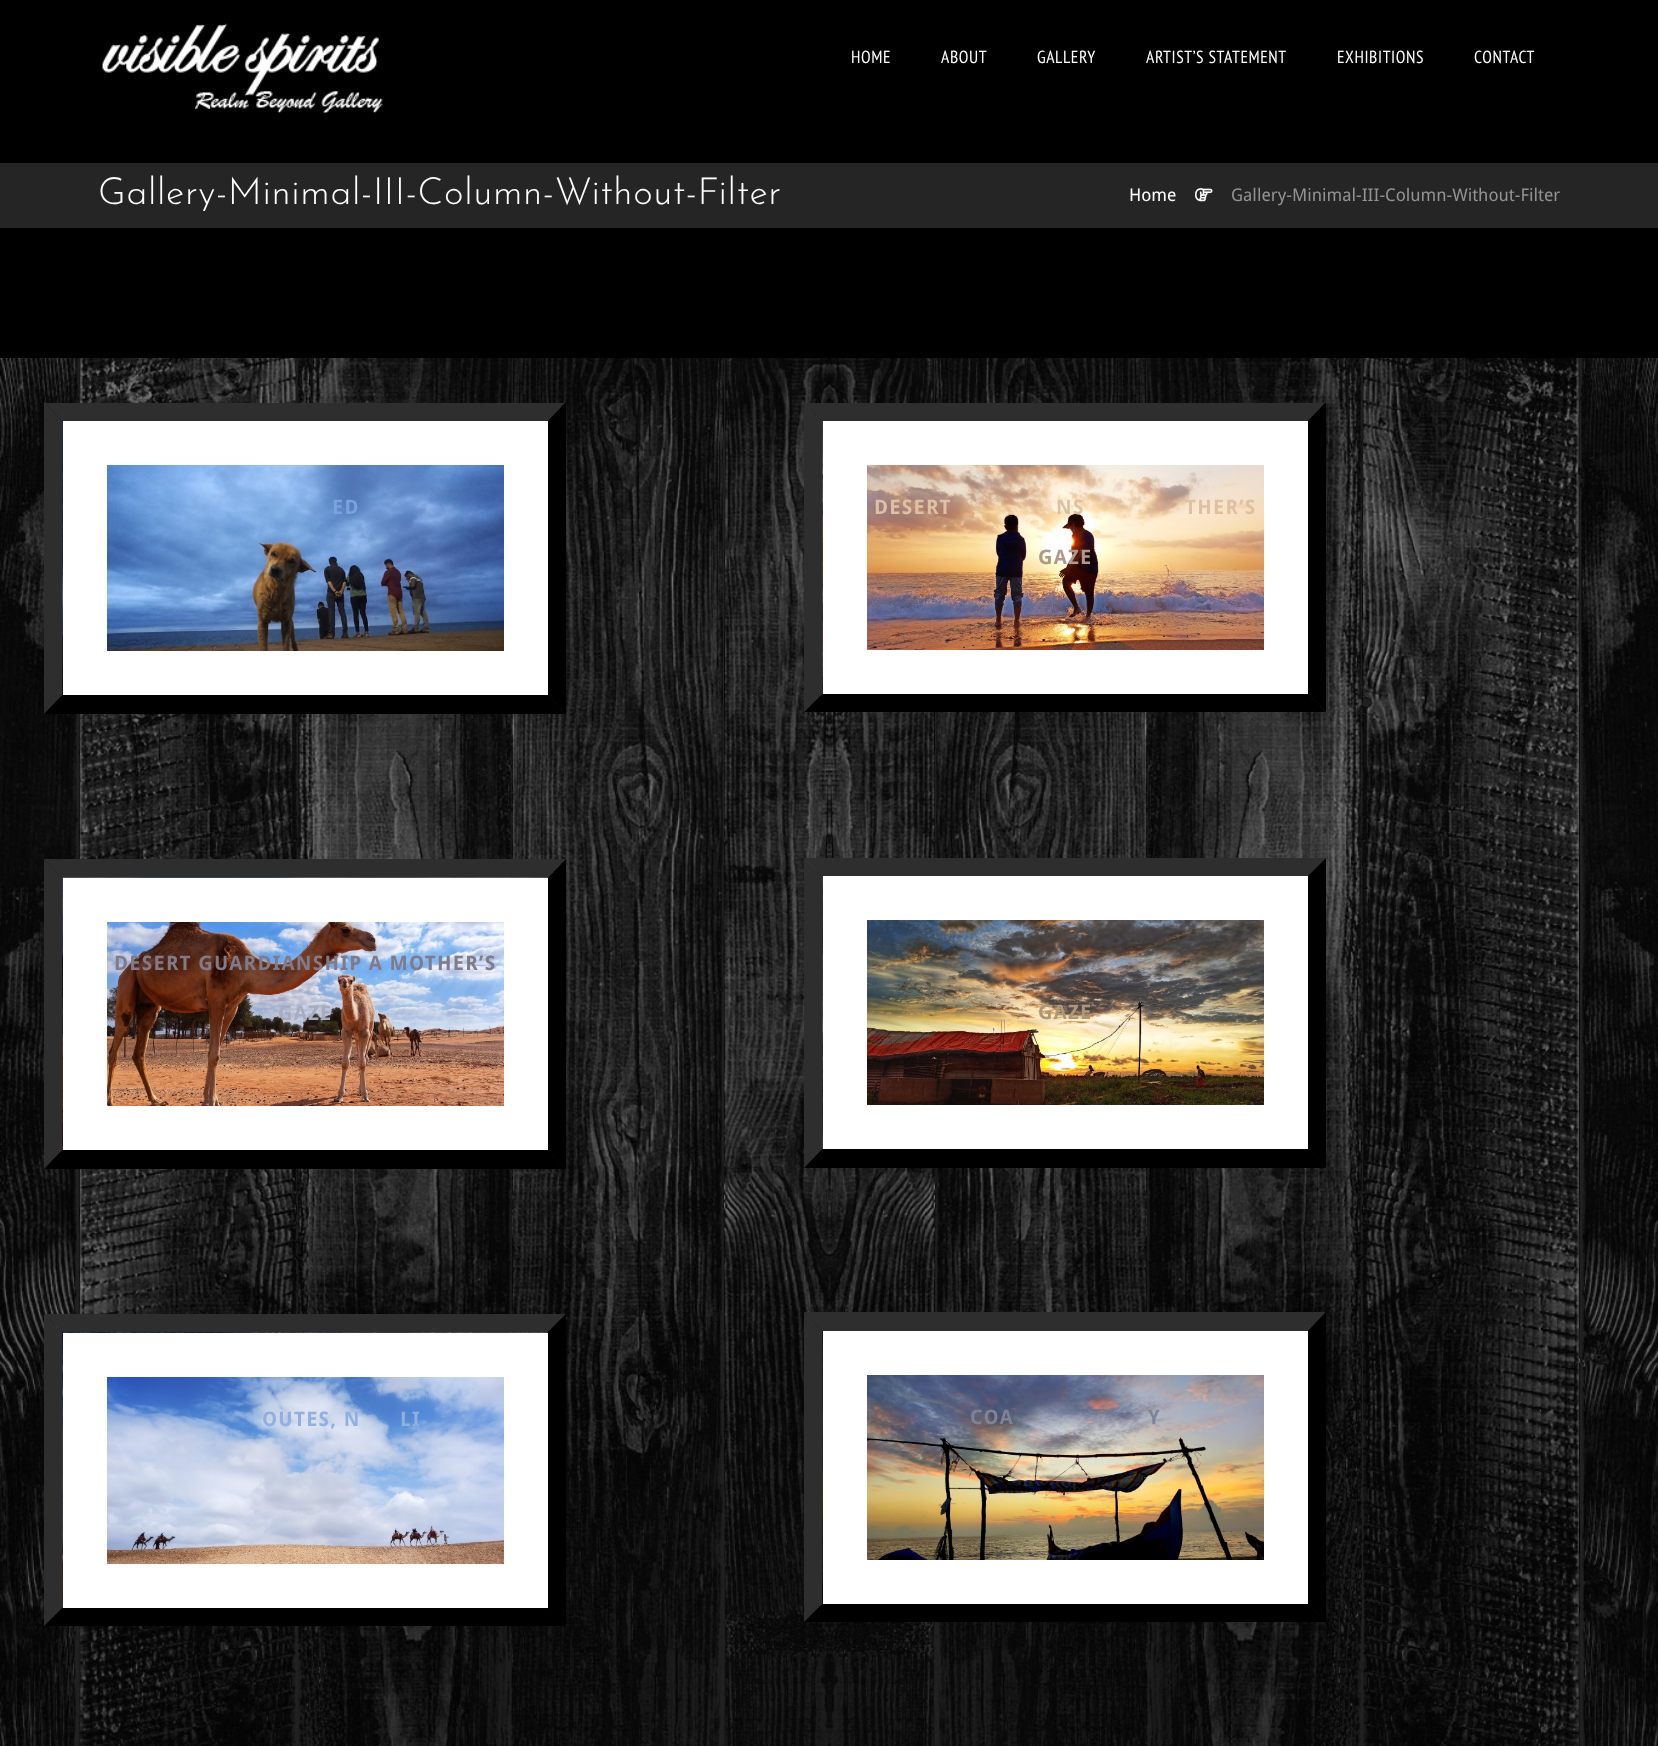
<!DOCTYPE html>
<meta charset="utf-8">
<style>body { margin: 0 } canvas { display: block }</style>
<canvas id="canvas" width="1658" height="1746"></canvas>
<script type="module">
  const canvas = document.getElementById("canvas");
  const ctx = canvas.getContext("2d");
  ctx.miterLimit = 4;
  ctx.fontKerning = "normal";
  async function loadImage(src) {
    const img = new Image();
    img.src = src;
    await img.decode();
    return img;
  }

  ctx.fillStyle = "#000000";
  ctx.fillRect(0, 0, 1658, 1746);
  ctx.drawImage(await loadImage("img1.png"), 102, 23, 281, 90);
  ctx.letterSpacing = "0.6px";
  ctx.font = "17.5px PT Sans Narrow";
  ctx.fillStyle = "#ffffff";
  ctx.fillText("HOME", 851, 63);
  ctx.fillText("ABOUT", 941, 63);
  ctx.fillText("GALLERY", 1037, 63);
  ctx.fillText("ARTIST’S STATEMENT", 1146, 63);
  ctx.fillText("EXHIBITIONS", 1337, 63);
  ctx.fillText("CONTACT", 1474, 63);
  ctx.fillStyle = "#252525";
  ctx.fillRect(0, 163, 1658, 65);
  ctx.font = "300 37.5px Josefin Sans";
  ctx.fillStyle = "#ffffff";
  ctx.fillText("Gallery-Minimal-III-Column-Without-Filter", 98, 204);
  ctx.letterSpacing = "0px";
  ctx.font = "17.5px Droid Sans";
  ctx.fillText("Home", 1129, 201);
  ctx.drawImage(await loadImage("img2.png"), 1195, 188, 18, 14);
  ctx.fillStyle = "#929292";
  ctx.fillText("Gallery-Minimal-III-Column-Without-Filter", 1231, 201);
  ctx.drawImage(await loadImage("img3.png"), 0, 358, 1658, 1388);
  ctx.save();
  ctx.beginPath();
  ctx.rect(44, 403, 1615, 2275);
  ctx.clip();
  ctx.fillStyle = "#2e2e2e";
  ctx.beginPath();
  ctx.moveTo(44, 402);
  ctx.lineTo(566, 402);
  ctx.lineTo(548, 421);
  ctx.lineTo(62, 421);
  ctx.closePath();
  ctx.fill();
  ctx.restore();
  ctx.fillStyle = "#000000";
  ctx.beginPath();
  ctx.moveTo(566, 402);
  ctx.lineTo(566, 714);
  ctx.lineTo(548, 695);
  ctx.lineTo(548, 421);
  ctx.closePath();
  ctx.fill();
  ctx.beginPath();
  ctx.moveTo(566, 714);
  ctx.lineTo(44, 714);
  ctx.lineTo(62, 695);
  ctx.lineTo(548, 695);
  ctx.closePath();
  ctx.fill();
  ctx.fillStyle = "#2e2e2e";
  ctx.beginPath();
  ctx.moveTo(44, 714);
  ctx.lineTo(44, 402);
  ctx.lineTo(62, 421);
  ctx.lineTo(62, 695);
  ctx.closePath();
  ctx.fill();
  ctx.drawImage(await loadImage("img4.png"), 62, 421, 442, 274);
  ctx.strokeStyle = "#ffffff";
  ctx.lineWidth = 44;
  ctx.strokeRect(85, 443, 441, 230);
  ctx.letterSpacing = "1.25px";
  ctx.font = "bold 20px Droid Sans";
  ctx.fillStyle = "#78a3dc";
  ctx.fillText("ED", 332, 514);
  ctx.save();
  ctx.beginPath();
  ctx.rect(44, 403, 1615, 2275);
  ctx.clip();
  ctx.fillStyle = "#2e2e2e";
  ctx.beginPath();
  ctx.moveTo(804, 402);
  ctx.lineTo(1326, 402);
  ctx.lineTo(1308, 421);
  ctx.lineTo(822, 421);
  ctx.closePath();
  ctx.fill();
  ctx.restore();
  ctx.fillStyle = "#000000";
  ctx.beginPath();
  ctx.moveTo(1326, 402);
  ctx.lineTo(1326, 712);
  ctx.lineTo(1308, 694);
  ctx.lineTo(1308, 421);
  ctx.closePath();
  ctx.fill();
  ctx.beginPath();
  ctx.moveTo(1326, 712);
  ctx.lineTo(804, 712);
  ctx.lineTo(822, 694);
  ctx.lineTo(1308, 694);
  ctx.closePath();
  ctx.fill();
  ctx.fillStyle = "#2e2e2e";
  ctx.beginPath();
  ctx.moveTo(804, 712);
  ctx.lineTo(804, 402);
  ctx.lineTo(822, 421);
  ctx.lineTo(822, 694);
  ctx.closePath();
  ctx.fill();
  ctx.drawImage(await loadImage("img5.png"), 822, 421, 442, 273);
  ctx.strokeRect(845, 443, 441, 229);
  ctx.fillStyle = "#dfc0a4";
  ctx.fillText("DESERT", 874, 514);
  ctx.fillText("NS", 1056, 514);
  ctx.fillText("THER’S", 1185, 514);
  ctx.fillStyle = "#ae998b";
  ctx.fillText("GAZE", 1038, 564);
  ctx.fillStyle = "#2e2e2e";
  ctx.beginPath();
  ctx.moveTo(44, 859);
  ctx.lineTo(566, 859);
  ctx.lineTo(548, 878);
  ctx.lineTo(62, 878);
  ctx.closePath();
  ctx.fill();
  ctx.fillStyle = "#000000";
  ctx.beginPath();
  ctx.moveTo(566, 859);
  ctx.lineTo(566, 1169);
  ctx.lineTo(548, 1150);
  ctx.lineTo(548, 878);
  ctx.closePath();
  ctx.fill();
  ctx.beginPath();
  ctx.moveTo(566, 1169);
  ctx.lineTo(44, 1169);
  ctx.lineTo(62, 1150);
  ctx.lineTo(548, 1150);
  ctx.closePath();
  ctx.fill();
  ctx.fillStyle = "#2e2e2e";
  ctx.beginPath();
  ctx.moveTo(44, 1169);
  ctx.lineTo(44, 859);
  ctx.lineTo(62, 878);
  ctx.lineTo(62, 1150);
  ctx.closePath();
  ctx.fill();
  ctx.drawImage(await loadImage("img6.png"), 62, 877, 486, 273);
  ctx.strokeRect(85, 900, 441, 228);
  ctx.fillStyle = "#807a89";
  ctx.fillText("DESERT GUARDIANSHIP A MOTHER’S", 114, 970);
  ctx.fillStyle = "#a7acbe";
  ctx.fillText("GAZE", 278, 1020);
  ctx.fillStyle = "#2e2e2e";
  ctx.beginPath();
  ctx.moveTo(804, 858);
  ctx.lineTo(1326, 858);
  ctx.lineTo(1308, 876);
  ctx.lineTo(822, 876);
  ctx.closePath();
  ctx.fill();
  ctx.fillStyle = "#000000";
  ctx.beginPath();
  ctx.moveTo(1326, 858);
  ctx.lineTo(1326, 1168);
  ctx.lineTo(1308, 1149);
  ctx.lineTo(1308, 876);
  ctx.closePath();
  ctx.fill();
  ctx.beginPath();
  ctx.moveTo(1326, 1168);
  ctx.lineTo(804, 1168);
  ctx.lineTo(822, 1149);
  ctx.lineTo(1308, 1149);
  ctx.closePath();
  ctx.fill();
  ctx.fillStyle = "#2e2e2e";
  ctx.beginPath();
  ctx.moveTo(804, 1168);
  ctx.lineTo(804, 858);
  ctx.lineTo(822, 876);
  ctx.lineTo(822, 1149);
  ctx.closePath();
  ctx.fill();
  ctx.drawImage(await loadImage("img7.png"), 822, 876, 442, 273);
  ctx.strokeRect(845, 898, 441, 229);
  ctx.fillStyle = "#ae9779";
  ctx.fillText("GAZE", 1038, 1019);
  ctx.fillStyle = "#2e2e2e";
  ctx.beginPath();
  ctx.moveTo(44, 1314);
  ctx.lineTo(566, 1314);
  ctx.lineTo(548, 1332);
  ctx.lineTo(62, 1332);
  ctx.closePath();
  ctx.fill();
  ctx.fillStyle = "#000000";
  ctx.beginPath();
  ctx.moveTo(566, 1314);
  ctx.lineTo(566, 1626);
  ctx.lineTo(548, 1608);
  ctx.lineTo(548, 1332);
  ctx.closePath();
  ctx.fill();
  ctx.beginPath();
  ctx.moveTo(566, 1626);
  ctx.lineTo(44, 1626);
  ctx.lineTo(62, 1608);
  ctx.lineTo(548, 1608);
  ctx.closePath();
  ctx.fill();
  ctx.fillStyle = "#2e2e2e";
  ctx.beginPath();
  ctx.moveTo(44, 1626);
  ctx.lineTo(44, 1314);
  ctx.lineTo(62, 1332);
  ctx.lineTo(62, 1608);
  ctx.closePath();
  ctx.fill();
  ctx.drawImage(await loadImage("img8.png"), 62, 1332, 486, 276);
  ctx.strokeRect(85, 1355, 441, 231);
  ctx.fillStyle = "#91b0e0";
  ctx.fillText("OUTES, N", 262, 1426);
  ctx.fillText("LI", 400, 1426);
  ctx.fillStyle = "#2e2e2e";
  ctx.beginPath();
  ctx.moveTo(804, 1312);
  ctx.lineTo(1326, 1312);
  ctx.lineTo(1308, 1331);
  ctx.lineTo(822, 1331);
  ctx.closePath();
  ctx.fill();
  ctx.fillStyle = "#000000";
  ctx.beginPath();
  ctx.moveTo(1326, 1312);
  ctx.lineTo(1326, 1622);
  ctx.lineTo(1308, 1604);
  ctx.lineTo(1308, 1331);
  ctx.closePath();
  ctx.fill();
  ctx.beginPath();
  ctx.moveTo(1326, 1622);
  ctx.lineTo(804, 1622);
  ctx.lineTo(822, 1604);
  ctx.lineTo(1308, 1604);
  ctx.closePath();
  ctx.fill();
  ctx.fillStyle = "#2e2e2e";
  ctx.beginPath();
  ctx.moveTo(804, 1622);
  ctx.lineTo(804, 1312);
  ctx.lineTo(822, 1331);
  ctx.lineTo(822, 1604);
  ctx.closePath();
  ctx.fill();
  ctx.drawImage(await loadImage("img9.png"), 822, 1331, 442, 273);
  ctx.strokeRect(845, 1353, 441, 229);
  ctx.fillStyle = "#7f8397";
  ctx.fillText("COA", 970, 1424);
  ctx.fillText("Y", 1148, 1424);
</script>
